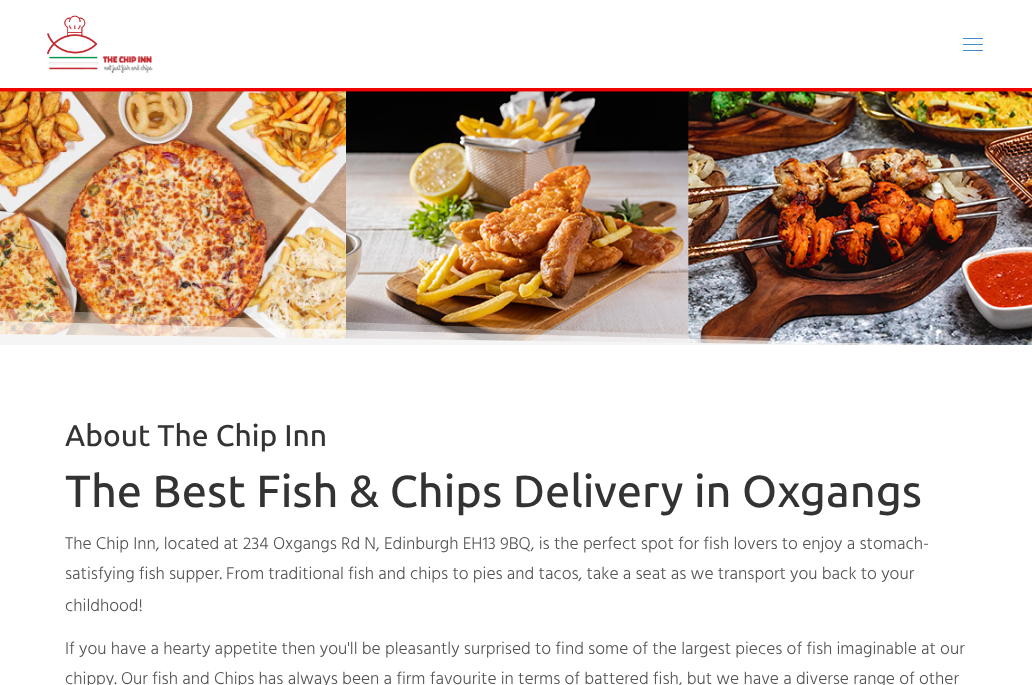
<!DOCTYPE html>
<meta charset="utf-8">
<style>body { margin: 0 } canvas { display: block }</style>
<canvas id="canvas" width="1032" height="685"></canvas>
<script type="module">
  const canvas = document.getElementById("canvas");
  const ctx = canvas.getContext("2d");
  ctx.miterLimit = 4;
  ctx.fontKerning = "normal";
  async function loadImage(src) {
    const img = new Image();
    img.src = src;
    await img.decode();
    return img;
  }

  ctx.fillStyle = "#ffffff";
  ctx.fillRect(0, 0, 1032, 685);
  ctx.fillStyle = "#ef0500";
  ctx.fillRect(0, 88, 1032, 4);
  ctx.drawImage(await loadImage("img1.png"), 47, 15, 106, 58);
  ctx.fillStyle = "#428bca";
  ctx.fillRect(963, 38, 20, 1);
  ctx.fillRect(963, 44, 20, 1);
  ctx.fillRect(963, 50, 20, 1);
  ctx.drawImage(await loadImage("img2.png"), 0, 91, 1032, 254);
  ctx.save();
  ctx.beginPath();
  ctx.rect(0, 309, 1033, 36);
  ctx.clip();
  ctx.fillStyle = "rgba(255, 255, 255, 0.3)";
  ctx.beginPath();
  ctx.moveTo(0, 309);
  ctx.lineTo(1009, 347);
  ctx.lineTo(0, 347);
  ctx.closePath();
  ctx.fill("evenodd");
  ctx.fillStyle = "rgba(255, 255, 255, 0.6)";
  ctx.beginPath();
  ctx.moveTo(0, 321);
  ctx.lineTo(1009, 347);
  ctx.lineTo(0, 347);
  ctx.closePath();
  ctx.fill("evenodd");
  ctx.fillStyle = "#f5f5f5";
  ctx.beginPath();
  ctx.moveTo(0, 334);
  ctx.lineTo(1009, 347);
  ctx.lineTo(0, 347);
  ctx.closePath();
  ctx.fill("evenodd");
  ctx.restore();
  ctx.font = "500 30px Ubuntu";
  ctx.fillStyle = "#333333";
  ctx.fillText("About The Chip Inn", 65, 446);
  ctx.font = "500 45px Ubuntu";
  ctx.fillText("The Best Fish & Chips Delivery in Oxgangs", 65, 507);
  ctx.font = "300 17.5px Hind Vadodara";
  ctx.fillStyle = "#535353";
  ctx.fillText("The Chip Inn, located at 234 Oxgangs Rd N, Edinburgh EH13 9BQ, is the perfect spot for fish lovers to enjoy a stomach-", 65, 549);
  ctx.fillText("satisfying fish supper. From traditional fish and chips to pies and tacos, take a seat as we transport you back to your", 65, 579);
  ctx.fillText("childhood!", 65, 611);
  ctx.fillText("If you have a hearty appetite then you'll be pleasantly surprised to find some of the largest pieces of fish imaginable at our", 65, 654);
  ctx.fillText("chippy. Our fish and Chips has always been a firm favourite in terms of battered fish, but we have a diverse range of other", 65, 684);
</script>
